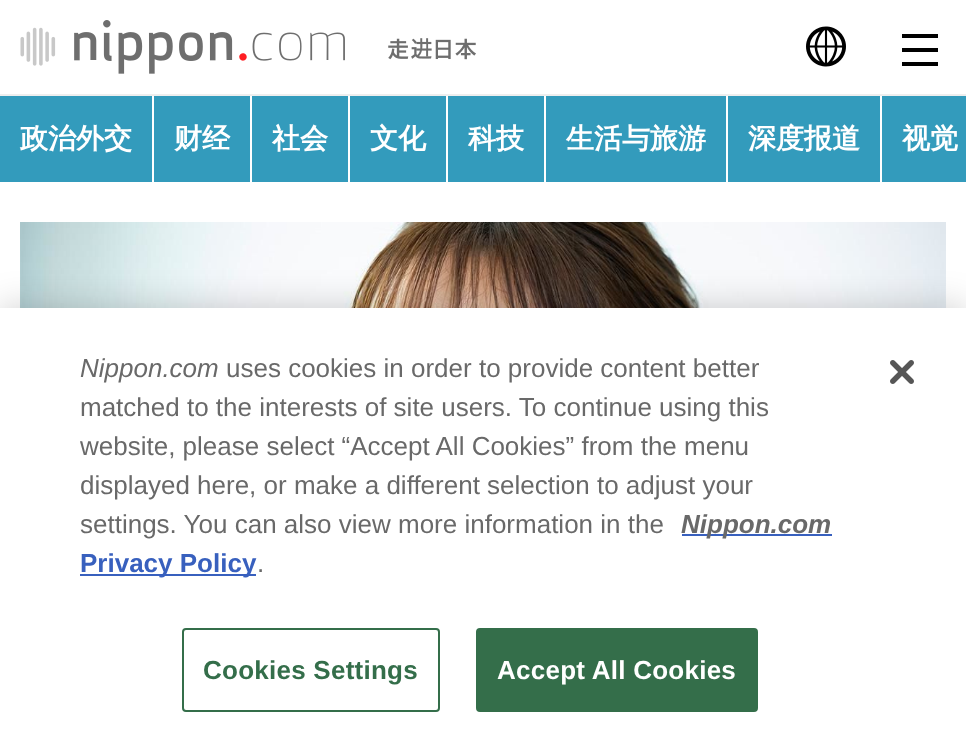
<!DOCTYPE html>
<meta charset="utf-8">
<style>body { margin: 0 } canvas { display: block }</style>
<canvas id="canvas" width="966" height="731"></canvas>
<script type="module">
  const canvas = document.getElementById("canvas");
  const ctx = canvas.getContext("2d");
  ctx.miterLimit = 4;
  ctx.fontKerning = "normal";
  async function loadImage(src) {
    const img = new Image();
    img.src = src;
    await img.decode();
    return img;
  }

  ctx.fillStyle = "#ffffff";
  ctx.fillRect(0, 0, 966, 731);
  ctx.fillStyle = "#eeeeee";
  ctx.fillRect(0, 94, 966, 2);
  ctx.drawImage(await loadImage("img1.png"), 20, 20, 456, 54);
  ctx.drawImage(await loadImage("img2.png"), 806, 26, 40, 41);
  ctx.fillStyle = "#000000";
  ctx.fillRect(902, 48, 36, 4);
  ctx.fillRect(902, 34, 36, 4);
  ctx.fillRect(902, 62, 36, 4);
  ctx.fillStyle = "#339bbc";
  ctx.fillRect(0, 96, 966, 86);
  ctx.fillStyle = "#ffffff";
  ctx.fillRect(152, 96, 2, 86);
  ctx.font = "bold 28px WenQuanYi Zen Hei";
  ctx.fillText("政治外交", 20, 148);
  ctx.fillRect(250, 96, 2, 86);
  ctx.fillText("财经", 174, 148);
  ctx.fillRect(348, 96, 2, 86);
  ctx.fillText("社会", 272, 148);
  ctx.fillRect(446, 96, 2, 86);
  ctx.fillText("文化", 370, 148);
  ctx.fillRect(544, 96, 2, 86);
  ctx.fillText("科技", 468, 148);
  ctx.fillRect(726, 96, 2, 86);
  ctx.fillText("生活与旅游", 566, 148);
  ctx.fillRect(880, 96, 2, 86);
  ctx.fillText("深度报道", 748, 148);
  ctx.fillText("视觉", 902, 148);
  ctx.drawImage(await loadImage("img3.png"), 20, 222, 926, 86);
  ctx.fillStyle = "rgba(0, 0, 0, 0.2)";
  ctx.filter = "blur(18px)";
  ctx.beginPath();
  ctx.rect(0, 308, 966, 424);
  ctx.fill();
  ctx.filter = "none";
  ctx.fillStyle = "#ffffff";
  ctx.fillRect(0, 308, 966, 423);
  ctx.font = "italic 26px Liberation Sans";
  ctx.fillStyle = "#696969";
  ctx.fillText("Nippon.com", 80, 377);
  ctx.font = "26px Liberation Sans";
  ctx.fillText("uses cookies in order to provide content better", 226, 377);
  ctx.fillText("matched to the interests of site users. To continue using this", 80, 416);
  ctx.fillText("website, please select “Accept All Cookies” from the menu", 80, 455);
  ctx.fillText("displayed here, or make a different selection to adjust your", 80, 494);
  ctx.fillText("settings. You can also view more information in the", 80, 533);
  ctx.fillStyle = "#3860be";
  ctx.fillRect(682, 534, 150, 2);
  ctx.font = "italic bold 26px Liberation Sans";
  ctx.fillStyle = "#696969";
  ctx.fillText("Nippon.com", 681, 533);
  ctx.fillStyle = "#3860be";
  ctx.fillRect(80, 574, 176, 2);
  ctx.font = "bold 26px Liberation Sans";
  ctx.fillText("Privacy Policy", 80, 572);
  ctx.font = "26px Liberation Sans";
  ctx.fillStyle = "#696969";
  ctx.fillText(".", 257, 572);
  ctx.beginPath();
  ctx.roundRect(183, 629, 256, 82, 3);
  ctx.strokeStyle = "#346e4a";
  ctx.lineWidth = 2;
  ctx.stroke();
  ctx.letterSpacing = "0.25px";
  ctx.font = "bold 26px Liberation Sans";
  ctx.fillStyle = "#346e4a";
  ctx.fillText("Cookies Settings", 203, 679);
  ctx.beginPath();
  ctx.roundRect(477, 629, 280, 82, 3);
  ctx.fill();
  ctx.stroke();
  ctx.fillStyle = "#ffffff";
  ctx.fillText("Accept All Cookies", 497, 679);
  ctx.drawImage(await loadImage("img4.png"), 890, 360, 24, 24);
</script>
